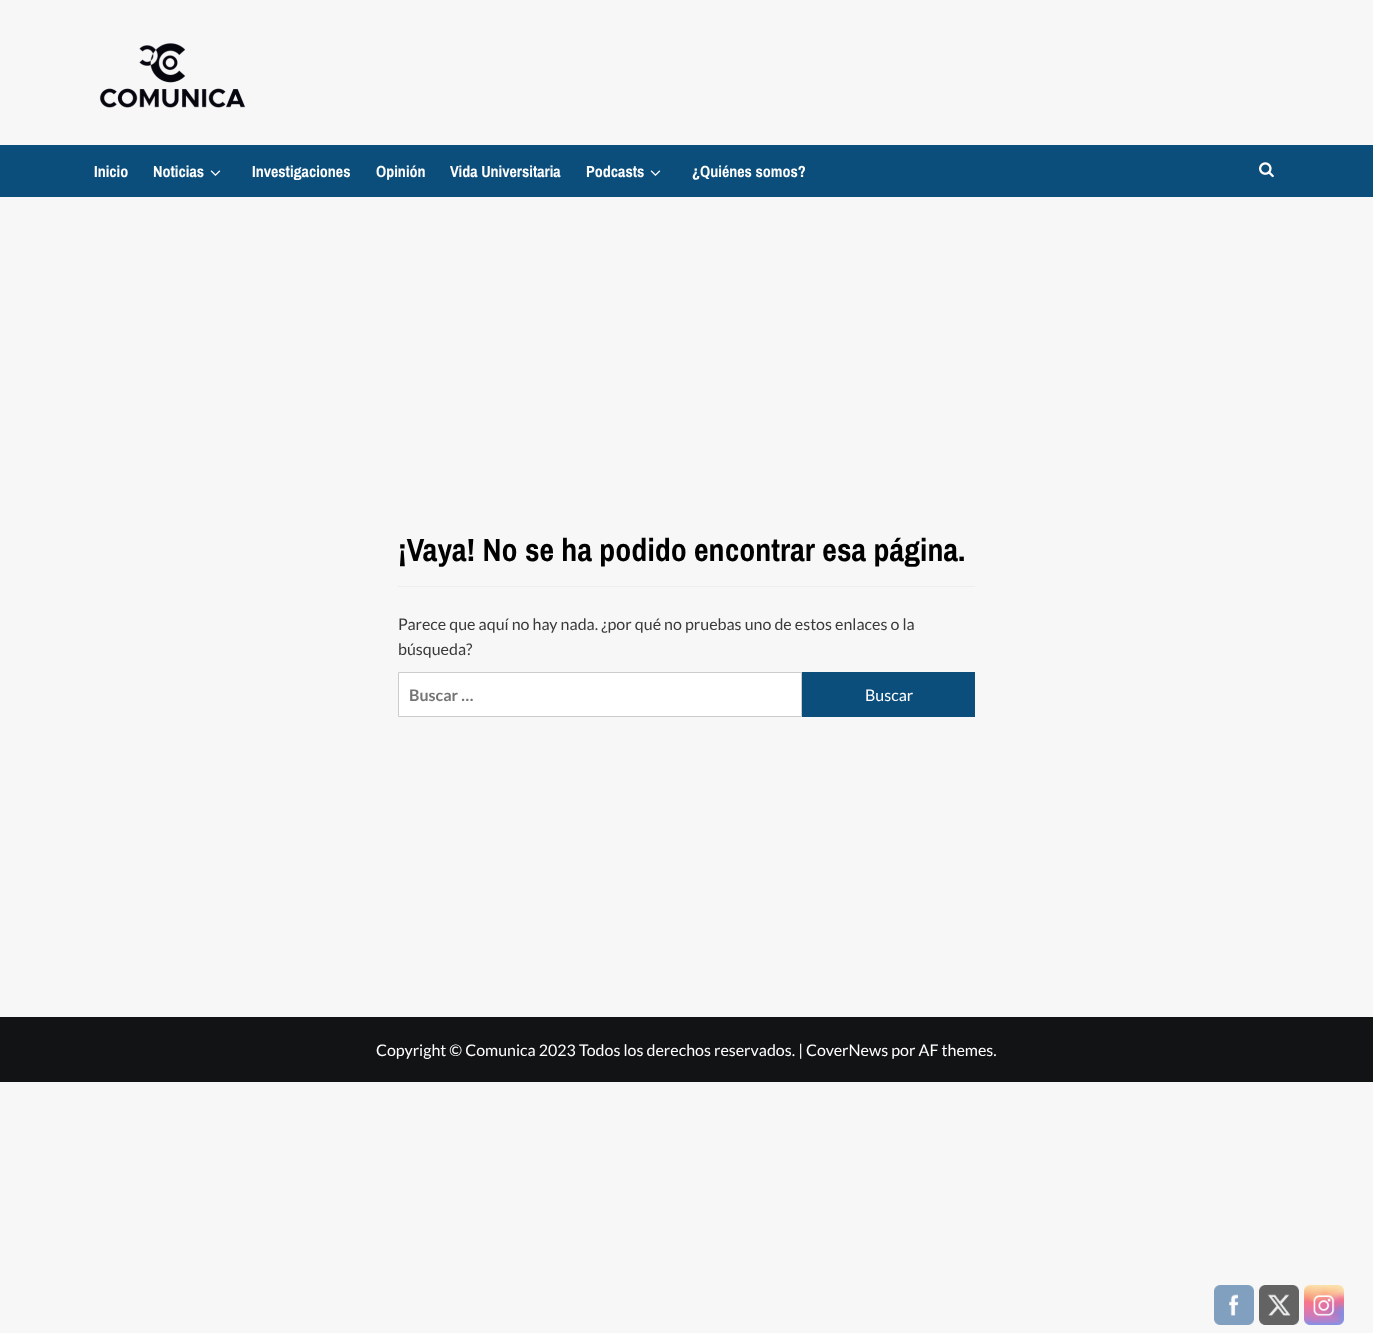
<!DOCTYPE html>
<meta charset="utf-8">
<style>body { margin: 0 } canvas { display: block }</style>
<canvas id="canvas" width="1373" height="1333"></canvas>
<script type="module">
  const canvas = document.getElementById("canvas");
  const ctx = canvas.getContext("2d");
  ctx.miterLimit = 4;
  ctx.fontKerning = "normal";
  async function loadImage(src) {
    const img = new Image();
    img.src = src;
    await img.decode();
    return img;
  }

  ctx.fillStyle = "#f7f7f7";
  ctx.fillRect(0, 0, 1373, 1333);
  ctx.drawImage(await loadImage("img1.png"), 99, 43, 147, 65);
  ctx.fillStyle = "#0c4e7b";
  ctx.fillRect(0, 145, 1373, 52);
  ctx.font = "bold 16px Archivo Narrow";
  ctx.fillStyle = "#ffffff";
  ctx.fillText("Inicio", 94, 177);
  ctx.fillText("Noticias", 153, 177);
  ctx.drawImage(await loadImage("img2.png"), 210, 170, 11, 6);
  ctx.fillText("Investigaciones", 252, 177);
  ctx.fillText("Opinión", 376, 177);
  ctx.fillText("Vida Universitaria", 450, 177);
  ctx.fillText("Podcasts", 586, 177);
  ctx.drawImage(await loadImage("img2.png"), 650, 170, 11, 6);
  ctx.fillText("¿Quiénes somos?", 692, 177);
  ctx.drawImage(await loadImage("img3.png"), 1259, 162, 15, 16);
  ctx.fillStyle = "#eeeeee";
  ctx.fillRect(398, 586, 577, 1);
  ctx.font = "bold 32px Archivo Narrow";
  ctx.fillStyle = "#000000";
  ctx.fillText("¡Vaya! No se ha podido encontrar esa página.", 398, 561);
  ctx.font = "16px Lato";
  ctx.fillStyle = "#3a3a3a";
  ctx.fillText("Parece que aquí no hay nada. ¿por qué no pruebas uno de estos enlaces o la", 398, 630);
  ctx.fillText("búsqueda?", 398, 655);
  ctx.fillStyle = "#ffffff";
  ctx.beginPath();
  ctx.rect(398.5, 672.5, 403, 44);
  ctx.fill();
  ctx.strokeStyle = "#cccccc";
  ctx.stroke();
  ctx.font = "bold 16px Lato";
  ctx.fillStyle = "#757575";
  ctx.fillText("Buscar …", 409, 701);
  ctx.fillStyle = "#0c4e7b";
  ctx.fillRect(802, 672, 173, 45);
  ctx.font = "16px Lato";
  ctx.fillStyle = "#ffffff";
  ctx.fillText("Buscar", 865, 701);
  ctx.fillStyle = "#121314";
  ctx.fillRect(0, 1017, 1373, 65);
  ctx.fillStyle = "#ffffff";
  ctx.fillText("Copyright © Comunica 2023 Todos los derechos reservados. | CoverNews por AF themes.", 376, 1056);
  ctx.drawImage(await loadImage("img4.png"), 1214, 1285, 40, 40);
  ctx.drawImage(await loadImage("img5.png"), 1259, 1285, 40, 40);
  ctx.drawImage(await loadImage("img6.png"), 1304, 1285, 40, 40);
</script>
